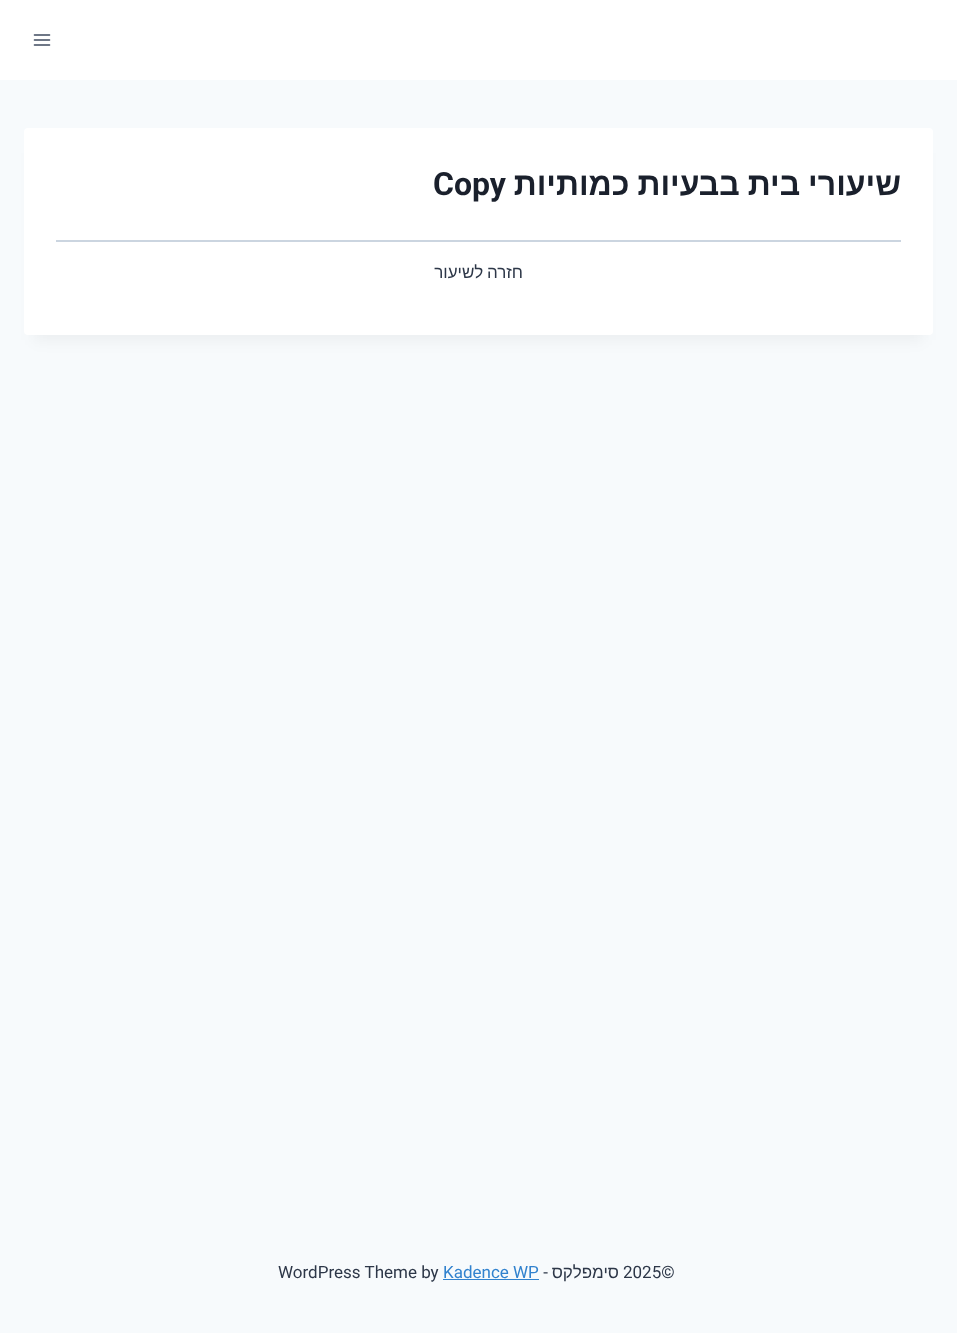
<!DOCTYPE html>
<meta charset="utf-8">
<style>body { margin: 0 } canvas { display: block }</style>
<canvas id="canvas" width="957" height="1333"></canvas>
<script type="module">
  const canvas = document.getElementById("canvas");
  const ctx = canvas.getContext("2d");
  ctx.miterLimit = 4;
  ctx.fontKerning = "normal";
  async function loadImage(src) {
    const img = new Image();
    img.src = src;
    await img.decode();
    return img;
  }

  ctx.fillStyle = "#f7fafc";
  ctx.fillRect(0, 0, 957, 1333);
  ctx.fillStyle = "#ffffff";
  ctx.fillRect(0, 0, 957, 80);
  ctx.drawImage(await loadImage("img1.png"), 33, 34, 18, 12);
  ctx.fillStyle = "rgba(0, 0, 0, 0.05)";
  ctx.filter = "blur(7.5px)";
  ctx.beginPath();
  ctx.rect(34, 153, 889, 187);
  ctx.fill();
  ctx.filter = "none";
  ctx.fillStyle = "#ffffff";
  ctx.beginPath();
  ctx.roundRect(24, 128, 909, 207, 4);
  ctx.fill();
  ctx.wordSpacing = "-1px";
  ctx.direction = "rtl";
  ctx.font = "bold 32px Liberation Sans";
  ctx.fillStyle = "#1a202c";
  ctx.fillText("שיעורי בית בבעיות כמותיות", 901, 195);
  ctx.wordSpacing = "0px";
  ctx.direction = "ltr";
  ctx.font = "bold 32px Roboto";
  ctx.fillText("Copy", 433, 195);
  ctx.fillStyle = "#cbd5e0";
  ctx.fillRect(56, 240, 845, 2);
  ctx.wordSpacing = "-1px";
  ctx.direction = "rtl";
  ctx.font = "17px Liberation Sans";
  ctx.fillStyle = "#2d3748";
  ctx.fillText("חזרה לשיעור", 523, 278);
  ctx.wordSpacing = "0px";
  ctx.direction = "ltr";
  ctx.font = "17px Roboto";
  ctx.fillText("2025©", 623, 1278);
  ctx.direction = "rtl";
  ctx.font = "17px Liberation Sans";
  ctx.fillText("סימפלקס", 619, 1278);
  ctx.font = "17px Roboto";
  ctx.fillText("-", 548, 1278);
  ctx.direction = "ltr";
  ctx.fillStyle = "#3182ce";
  ctx.fillText("Kadence WP", 443, 1278);
  ctx.fillRect(443, 1279, 96, 1);
  ctx.fillStyle = "#2d3748";
  ctx.fillText("WordPress Theme by", 278, 1278);
</script>
